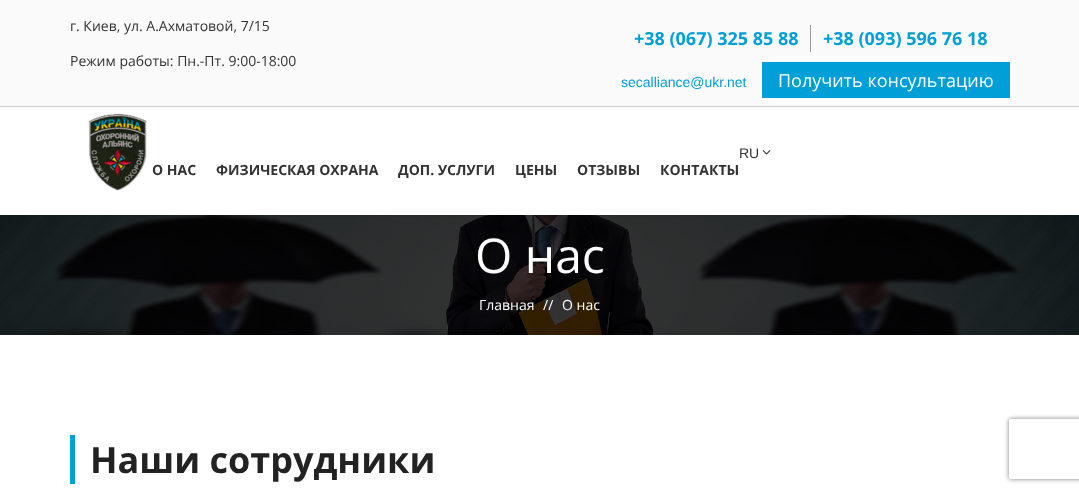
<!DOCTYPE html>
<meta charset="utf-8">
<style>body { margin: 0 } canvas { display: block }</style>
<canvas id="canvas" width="1079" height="493"></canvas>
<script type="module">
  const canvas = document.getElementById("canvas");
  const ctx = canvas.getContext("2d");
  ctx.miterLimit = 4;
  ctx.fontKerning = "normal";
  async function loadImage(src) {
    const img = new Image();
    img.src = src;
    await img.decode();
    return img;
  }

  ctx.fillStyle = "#ffffff";
  ctx.fillRect(0, 0, 1079, 493);
  ctx.fillStyle = "#fafafa";
  ctx.fillRect(0, 0, 1079, 106);
  ctx.fillStyle = "#cccccc";
  ctx.fillRect(0, 106, 1079, 1);
  ctx.font = "14px Open Sans";
  ctx.fillStyle = "#333333";
  ctx.fillText("г. Киев, ул. А.Ахматовой, 7/15", 70, 31);
  ctx.fillText("Режим работы: Пн.-Пт. 9:00-18:00", 70, 66);
  ctx.font = "bold 18px Open Sans";
  ctx.fillStyle = "#009fd7";
  ctx.fillText("+38 (067) 325 85 88", 634, 45);
  ctx.fillStyle = "#999999";
  ctx.fillRect(810, 25, 1, 27);
  ctx.fillStyle = "#009fd7";
  ctx.fillText("+38 (093) 596 76 18", 823, 45);
  ctx.font = "14px Liberation Sans";
  ctx.fillText("secalliance@ukr.net", 621, 87);
  ctx.fillRect(762, 62, 248, 36);
  ctx.font = "18px Open Sans";
  ctx.fillStyle = "#ffffff";
  ctx.fillText("Получить консультацию", 778, 87);
  ctx.drawImage(await loadImage("img1.png"), 88, 113, 59, 78);
  ctx.font = "14px Liberation Sans";
  ctx.fillStyle = "#333333";
  ctx.fillText("RU", 739, 158);
  ctx.drawImage(await loadImage("img2.png"), 762, 150, 9, 5);
  ctx.font = "bold 14px Open Sans";
  ctx.fillText("О НАС", 152, 175);
  ctx.fillText("ФИЗИЧЕСКАЯ ОХРАНА", 216, 175);
  ctx.fillText("ДОП. УСЛУГИ", 398, 175);
  ctx.fillText("ЦЕНЫ", 515, 175);
  ctx.fillText("ОТЗЫВЫ", 577, 175);
  ctx.fillText("КОНТАКТЫ", 660, 175);
  ctx.fillStyle = "#000000";
  ctx.fillRect(0, 215, 1079, 120);
  ctx.drawImage(await loadImage("img3.png"), 0, 215, 1079, 120);
  ctx.font = "48px Open Sans";
  ctx.fillStyle = "#ffffff";
  ctx.fillText("О нас", 475, 273);
  ctx.font = "14px Open Sans";
  ctx.fillText("Главная", 479, 310);
  ctx.fillText("//", 543, 310);
  ctx.fillText("О нас", 562, 310);
  ctx.fillStyle = "#009fd7";
  ctx.fillRect(70, 435, 5, 49);
  ctx.font = "bold 36px Open Sans";
  ctx.fillStyle = "#222222";
  ctx.fillText("Наши сотрудники", 90, 473);
  ctx.save();
  ctx.beginPath();
  ctx.moveTo(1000, 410);
  ctx.lineTo(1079, 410);
  ctx.lineTo(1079, 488);
  ctx.lineTo(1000, 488);
  ctx.closePath();
  ctx.moveTo(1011, 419);
  ctx.lineTo(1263, 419);
  ctx.bezierCurveTo(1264, 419, 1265, 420, 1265, 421);
  ctx.lineTo(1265, 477);
  ctx.bezierCurveTo(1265, 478, 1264, 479, 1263, 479);
  ctx.lineTo(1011, 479);
  ctx.bezierCurveTo(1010, 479, 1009, 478, 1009, 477);
  ctx.lineTo(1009, 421);
  ctx.bezierCurveTo(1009, 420, 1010, 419, 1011, 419);
  ctx.closePath();
  ctx.clip("evenodd");
  ctx.fillStyle = "#808080";
  ctx.filter = "blur(2.5px)";
  ctx.beginPath();
  ctx.roundRect(1009, 419, 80, 60, 2);
  ctx.fill();
  ctx.filter = "none";
  ctx.restore();
</script>
